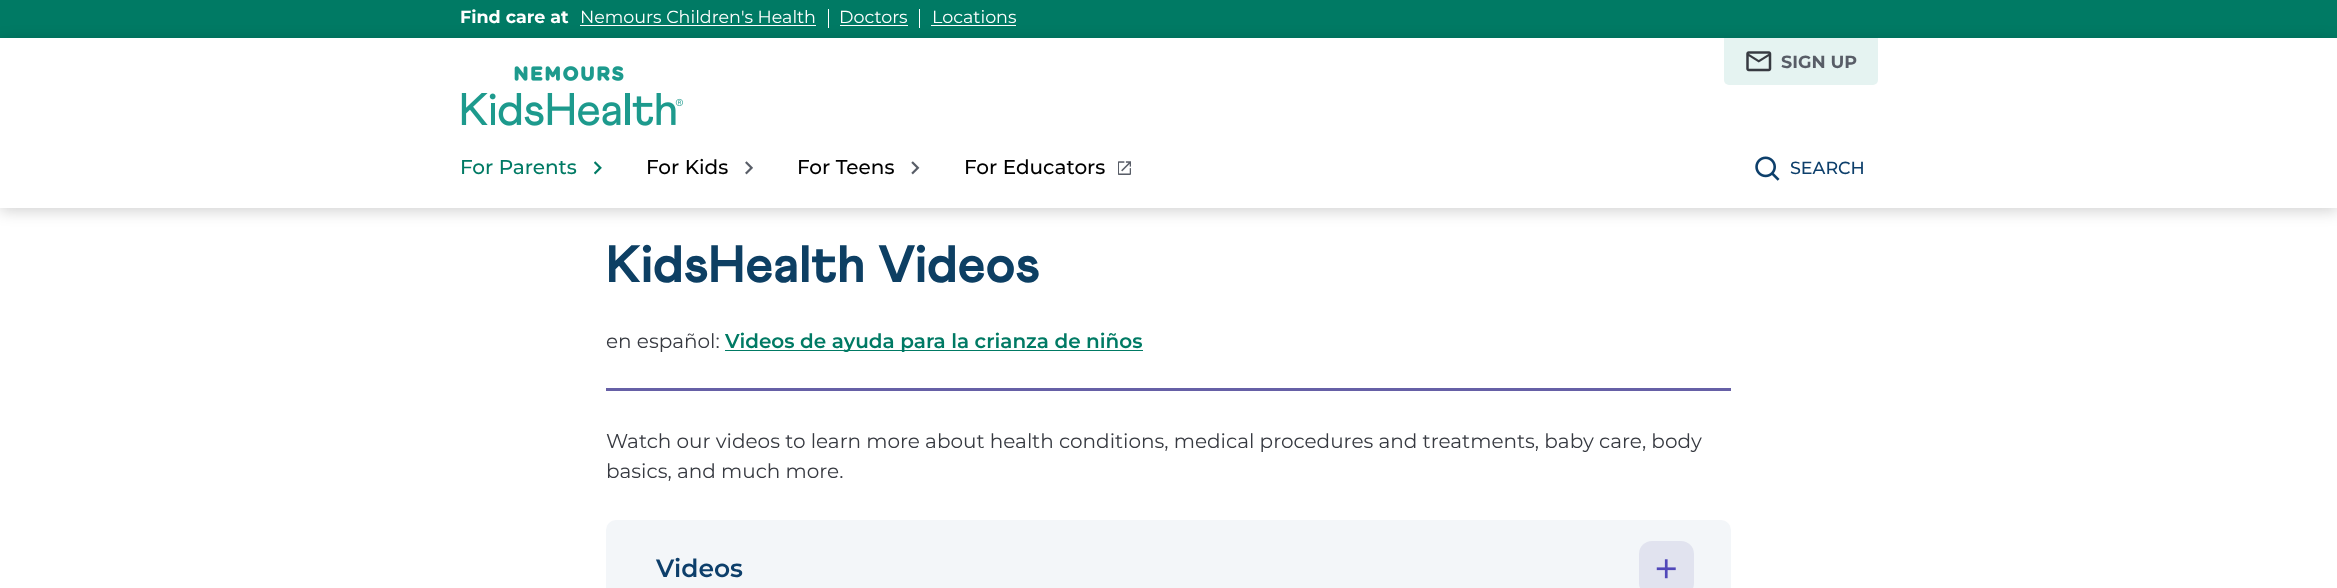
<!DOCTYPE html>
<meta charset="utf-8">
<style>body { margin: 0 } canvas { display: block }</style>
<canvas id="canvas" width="2337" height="588"></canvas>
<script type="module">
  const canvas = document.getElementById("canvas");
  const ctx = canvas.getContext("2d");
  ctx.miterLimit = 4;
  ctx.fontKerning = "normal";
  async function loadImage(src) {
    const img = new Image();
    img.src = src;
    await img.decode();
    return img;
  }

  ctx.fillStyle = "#ffffff";
  ctx.fillRect(0, 0, 2337, 588);
  ctx.fillStyle = "#007a64";
  ctx.fillRect(0, 0, 2337, 38);
  ctx.font = "bold 17.5px Montserrat";
  ctx.fillStyle = "#ffffff";
  ctx.fillText("Find care at", 460, 23);
  ctx.font = "17.5px Montserrat";
  ctx.fillText("Nemours Children's Health", 580, 23);
  ctx.fillRect(580, 25, 236, 1);
  ctx.fillRect(828, 9, 1, 19);
  ctx.fillText("Doctors", 839, 23);
  ctx.fillRect(840, 25, 68, 1);
  ctx.fillRect(919, 9, 1, 19);
  ctx.fillText("Locations", 932, 23);
  ctx.fillRect(931, 25, 85, 1);
  ctx.fillStyle = "rgba(0, 0, 0, 0.18)";
  ctx.filter = "blur(7.5px)";
  ctx.beginPath();
  ctx.rect(0, 41, 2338, 170);
  ctx.fill();
  ctx.filter = "none";
  ctx.fillStyle = "#ffffff";
  ctx.fillRect(0, 38, 2337, 170);
  ctx.fillStyle = "#e5f3f1";
  ctx.beginPath();
  ctx.roundRect(1724, 38, 154, 47, [0, 0, 5, 5]);
  ctx.fill();
  ctx.drawImage(await loadImage("img1.png"), 1746, 51, 26, 21);
  ctx.font = "bold 17.5px Montserrat";
  ctx.fillStyle = "#585d67";
  ctx.fillText("SIGN UP", 1781, 68);
  ctx.drawImage(await loadImage("img2.png"), 461, 66, 222, 60);
  ctx.drawImage(await loadImage("img3.png"), 594, 161, 8, 14);
  ctx.font = "500 20px Montserrat";
  ctx.fillStyle = "#007a64";
  ctx.fillText("For Parents", 460, 174);
  ctx.drawImage(await loadImage("img4.png"), 745, 161, 8, 14);
  ctx.fillStyle = "#000000";
  ctx.fillText("For Kids", 646, 174);
  ctx.drawImage(await loadImage("img5.png"), 911, 161, 9, 14);
  ctx.fillText("For Teens", 797, 174);
  ctx.drawImage(await loadImage("img6.png"), 1118, 161, 13, 14);
  ctx.fillText("For Educators", 964, 174);
  ctx.drawImage(await loadImage("img7.png"), 1755, 156, 25, 25);
  ctx.font = "500 17.5px Montserrat";
  ctx.fillStyle = "#0d3f6b";
  ctx.fillText("SEARCH", 1790, 174);
  ctx.fillStyle = "#6660a6";
  ctx.fillRect(606, 388, 1125, 3);
  ctx.font = "800 52.5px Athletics";
  ctx.fillStyle = "#0d3f63";
  ctx.fillText("KidsHealth Videos", 606, 282);
  ctx.font = "20px Montserrat";
  ctx.fillStyle = "#373a41";
  ctx.fillText("en español:", 606, 348);
  ctx.fillStyle = "#007a64";
  ctx.fillRect(725, 350, 418, 1);
  ctx.font = "600 20px Montserrat";
  ctx.fillText("Videos de ayuda para la crianza de niños", 725, 348);
  ctx.font = "20px Montserrat";
  ctx.fillStyle = "#373a41";
  ctx.fillText("Watch our videos to learn more about health conditions, medical procedures and treatments, baby care, body", 606, 448);
  ctx.fillText("basics, and much more.", 606, 478);
  ctx.fillStyle = "#f3f6f9";
  ctx.beginPath();
  ctx.roundRect(606, 520, 1125, 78, 10);
  ctx.fill();
  ctx.font = "600 25px Montserrat";
  ctx.fillStyle = "#0d3f6b";
  ctx.fillText("Videos", 656, 577);
  ctx.fillStyle = "#e1e3ef";
  ctx.beginPath();
  ctx.roundRect(1639, 541, 55, 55, 13);
  ctx.fill();
  ctx.drawImage(await loadImage("img8.png"), 1656, 559, 20, 20);
</script>
